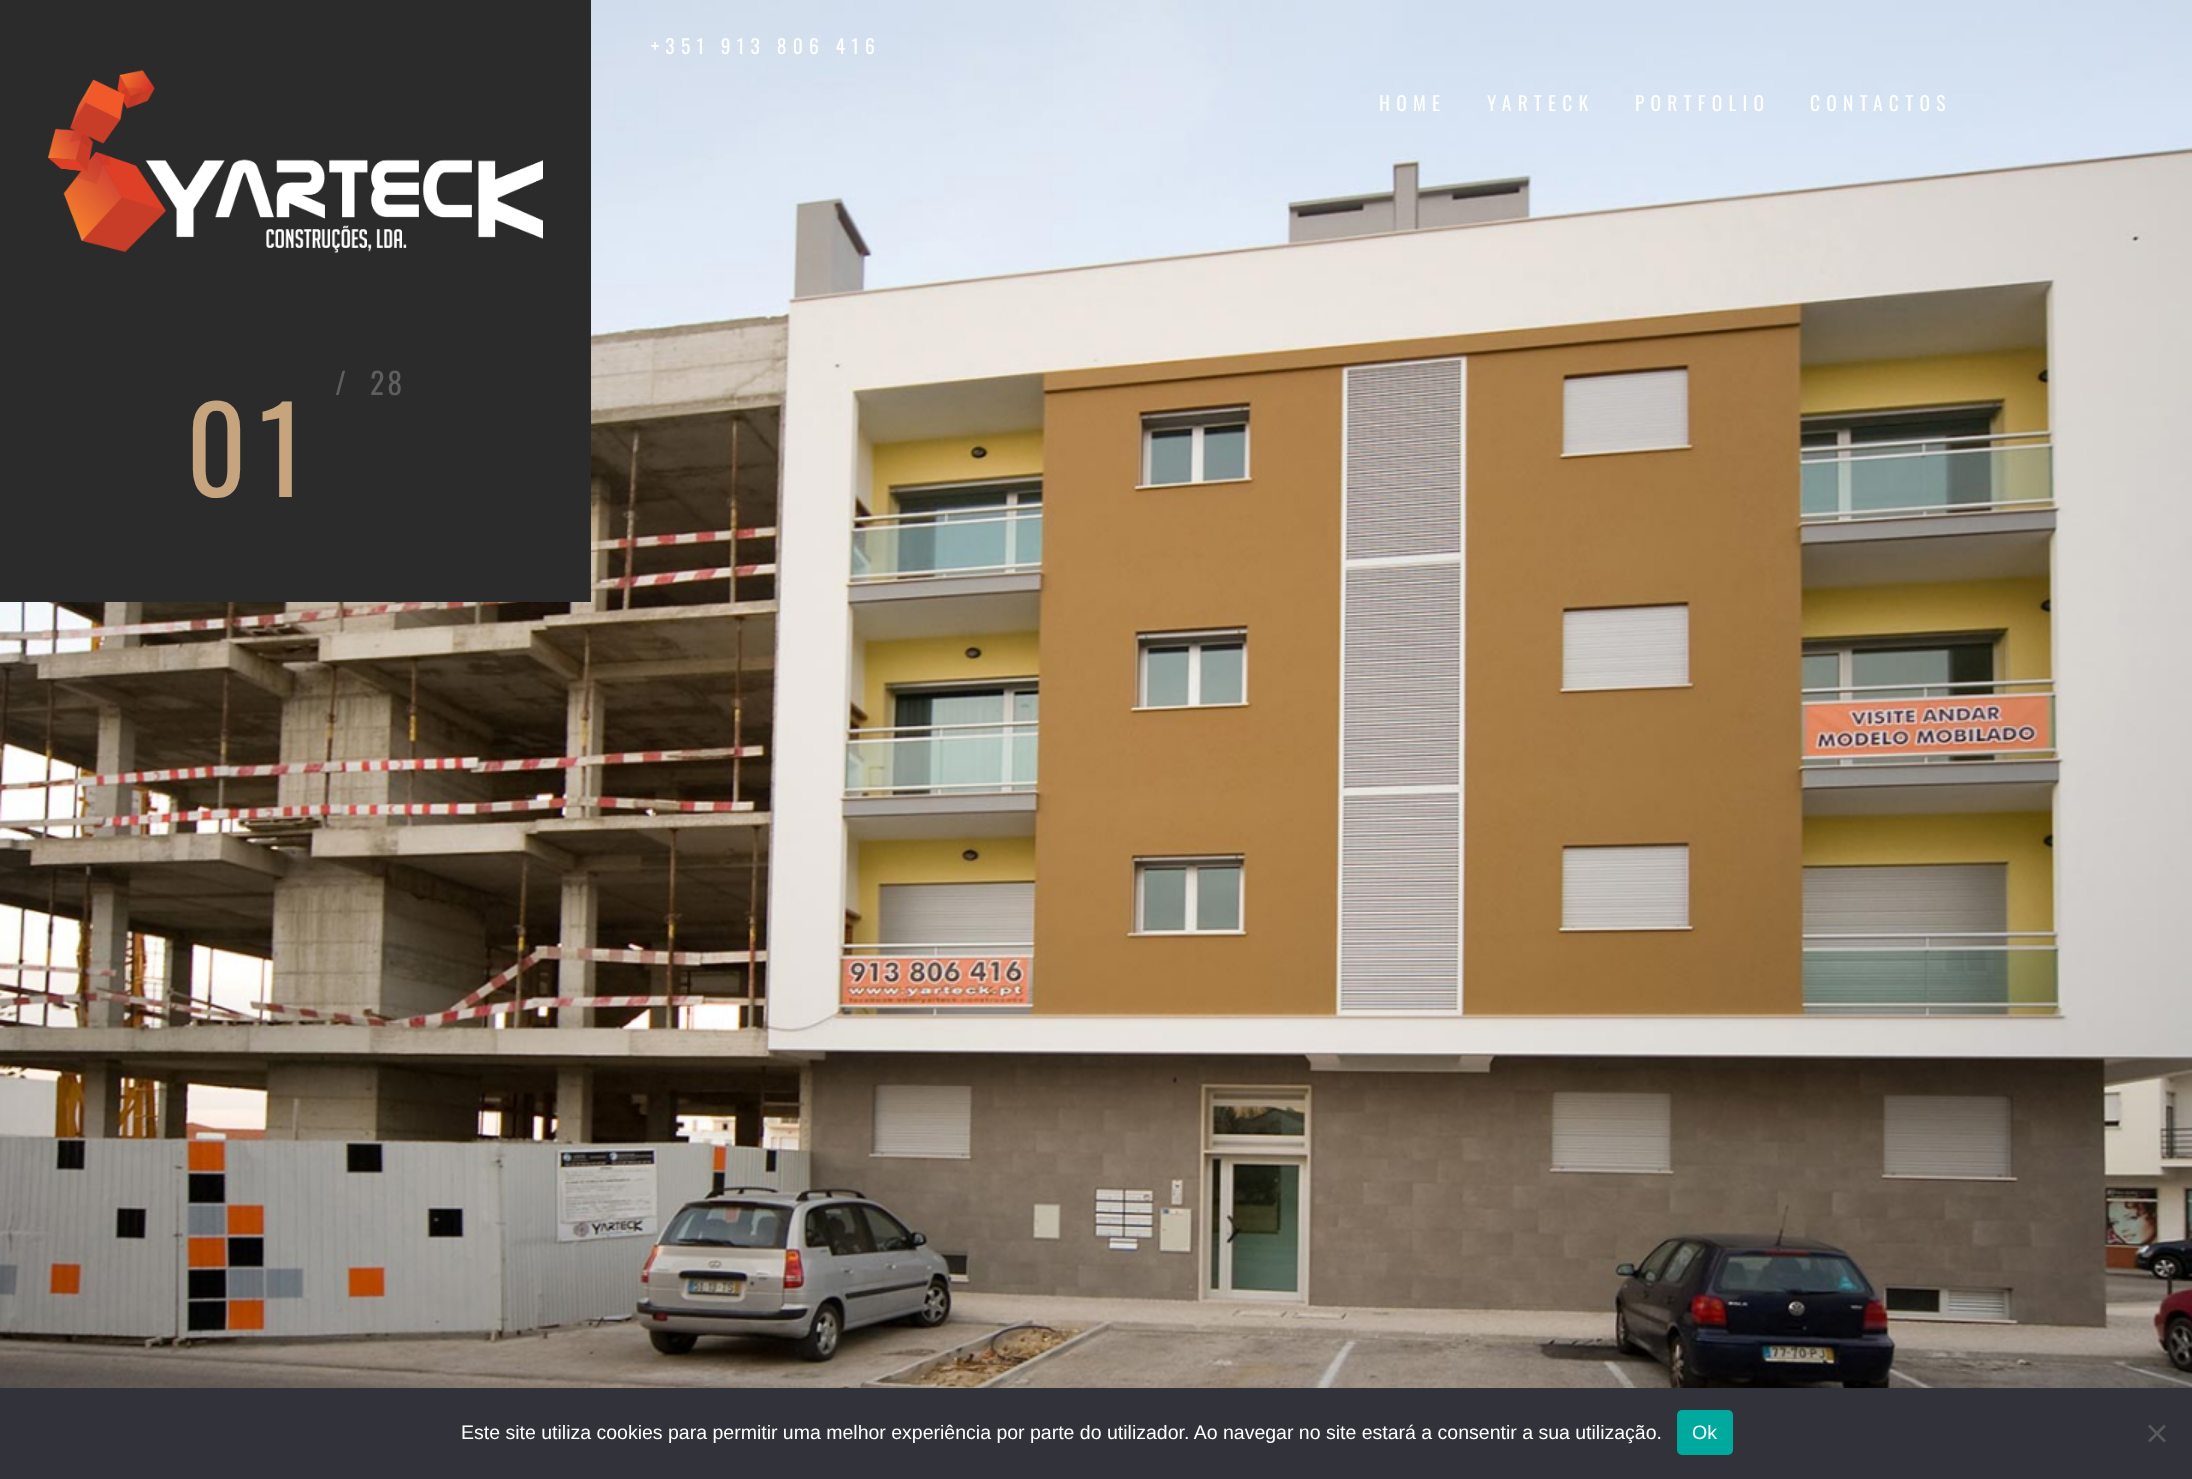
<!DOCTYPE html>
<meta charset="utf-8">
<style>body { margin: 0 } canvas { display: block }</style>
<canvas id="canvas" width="2192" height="1479"></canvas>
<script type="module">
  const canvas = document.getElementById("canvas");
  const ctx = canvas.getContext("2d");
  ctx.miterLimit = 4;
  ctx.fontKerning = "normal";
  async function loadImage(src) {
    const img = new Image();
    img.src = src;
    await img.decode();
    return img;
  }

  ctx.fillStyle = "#ffffff";
  ctx.fillRect(0, 0, 2192, 1479);
  ctx.drawImage(await loadImage("img1.png"), 0, 0, 2192, 1388);
  ctx.letterSpacing = "6.25px";
  ctx.font = "19.5px Oswald";
  ctx.fillText("+351 913 806 416", 651, 54);
  ctx.fillText("HOME", 1379, 111);
  ctx.fillText("YARTECK", 1487, 111);
  ctx.fillText("PORTFOLIO", 1635, 111);
  ctx.fillText("CONTACTOS", 1810, 111);
  ctx.fillStyle = "#2b2b2b";
  ctx.fillRect(0, 0, 591, 602);
  ctx.drawImage(await loadImage("img2.png"), 48, 70, 495, 183);
  ctx.letterSpacing = "3px";
  ctx.font = "30px Oswald";
  ctx.fillStyle = "#5e5e5e";
  ctx.fillText("/", 335, 395);
  ctx.fillText("28", 370, 395);
  ctx.letterSpacing = "12px";
  ctx.font = "118px Oswald";
  ctx.fillStyle = "#c5a47e";
  ctx.fillText("01", 186, 497);
  ctx.fillStyle = "#32323a";
  ctx.fillRect(0, 1388, 2192, 91);
  ctx.letterSpacing = "0px";
  ctx.font = "19.5px Liberation Sans";
  ctx.fillStyle = "#ffffff";
  ctx.fillText("Este site utiliza cookies para permitir uma melhor experiência por parte do utilizador. Ao navegar no site estará a consentir a sua utilização.", 461, 1439);
  ctx.fillStyle = "#00a99d";
  ctx.beginPath();
  ctx.roundRect(1677, 1410, 56, 45, 5);
  ctx.fill();
  ctx.fillStyle = "#ffffff";
  ctx.fillText("Ok", 1692, 1439);
  ctx.fillStyle = "#59595d";
  ctx.beginPath();
  ctx.moveTo(2164, 1424.5);
  ctx.lineTo(2166, 1426.5);
  ctx.lineTo(2150, 1442.5);
  ctx.lineTo(2148, 1440.5);
  ctx.closePath();
  ctx.fill();
  ctx.beginPath();
  ctx.moveTo(2148, 1426.5);
  ctx.lineTo(2150, 1424.5);
  ctx.lineTo(2166, 1440.5);
  ctx.lineTo(2164, 1442.5);
  ctx.closePath();
  ctx.fill();
</script>
